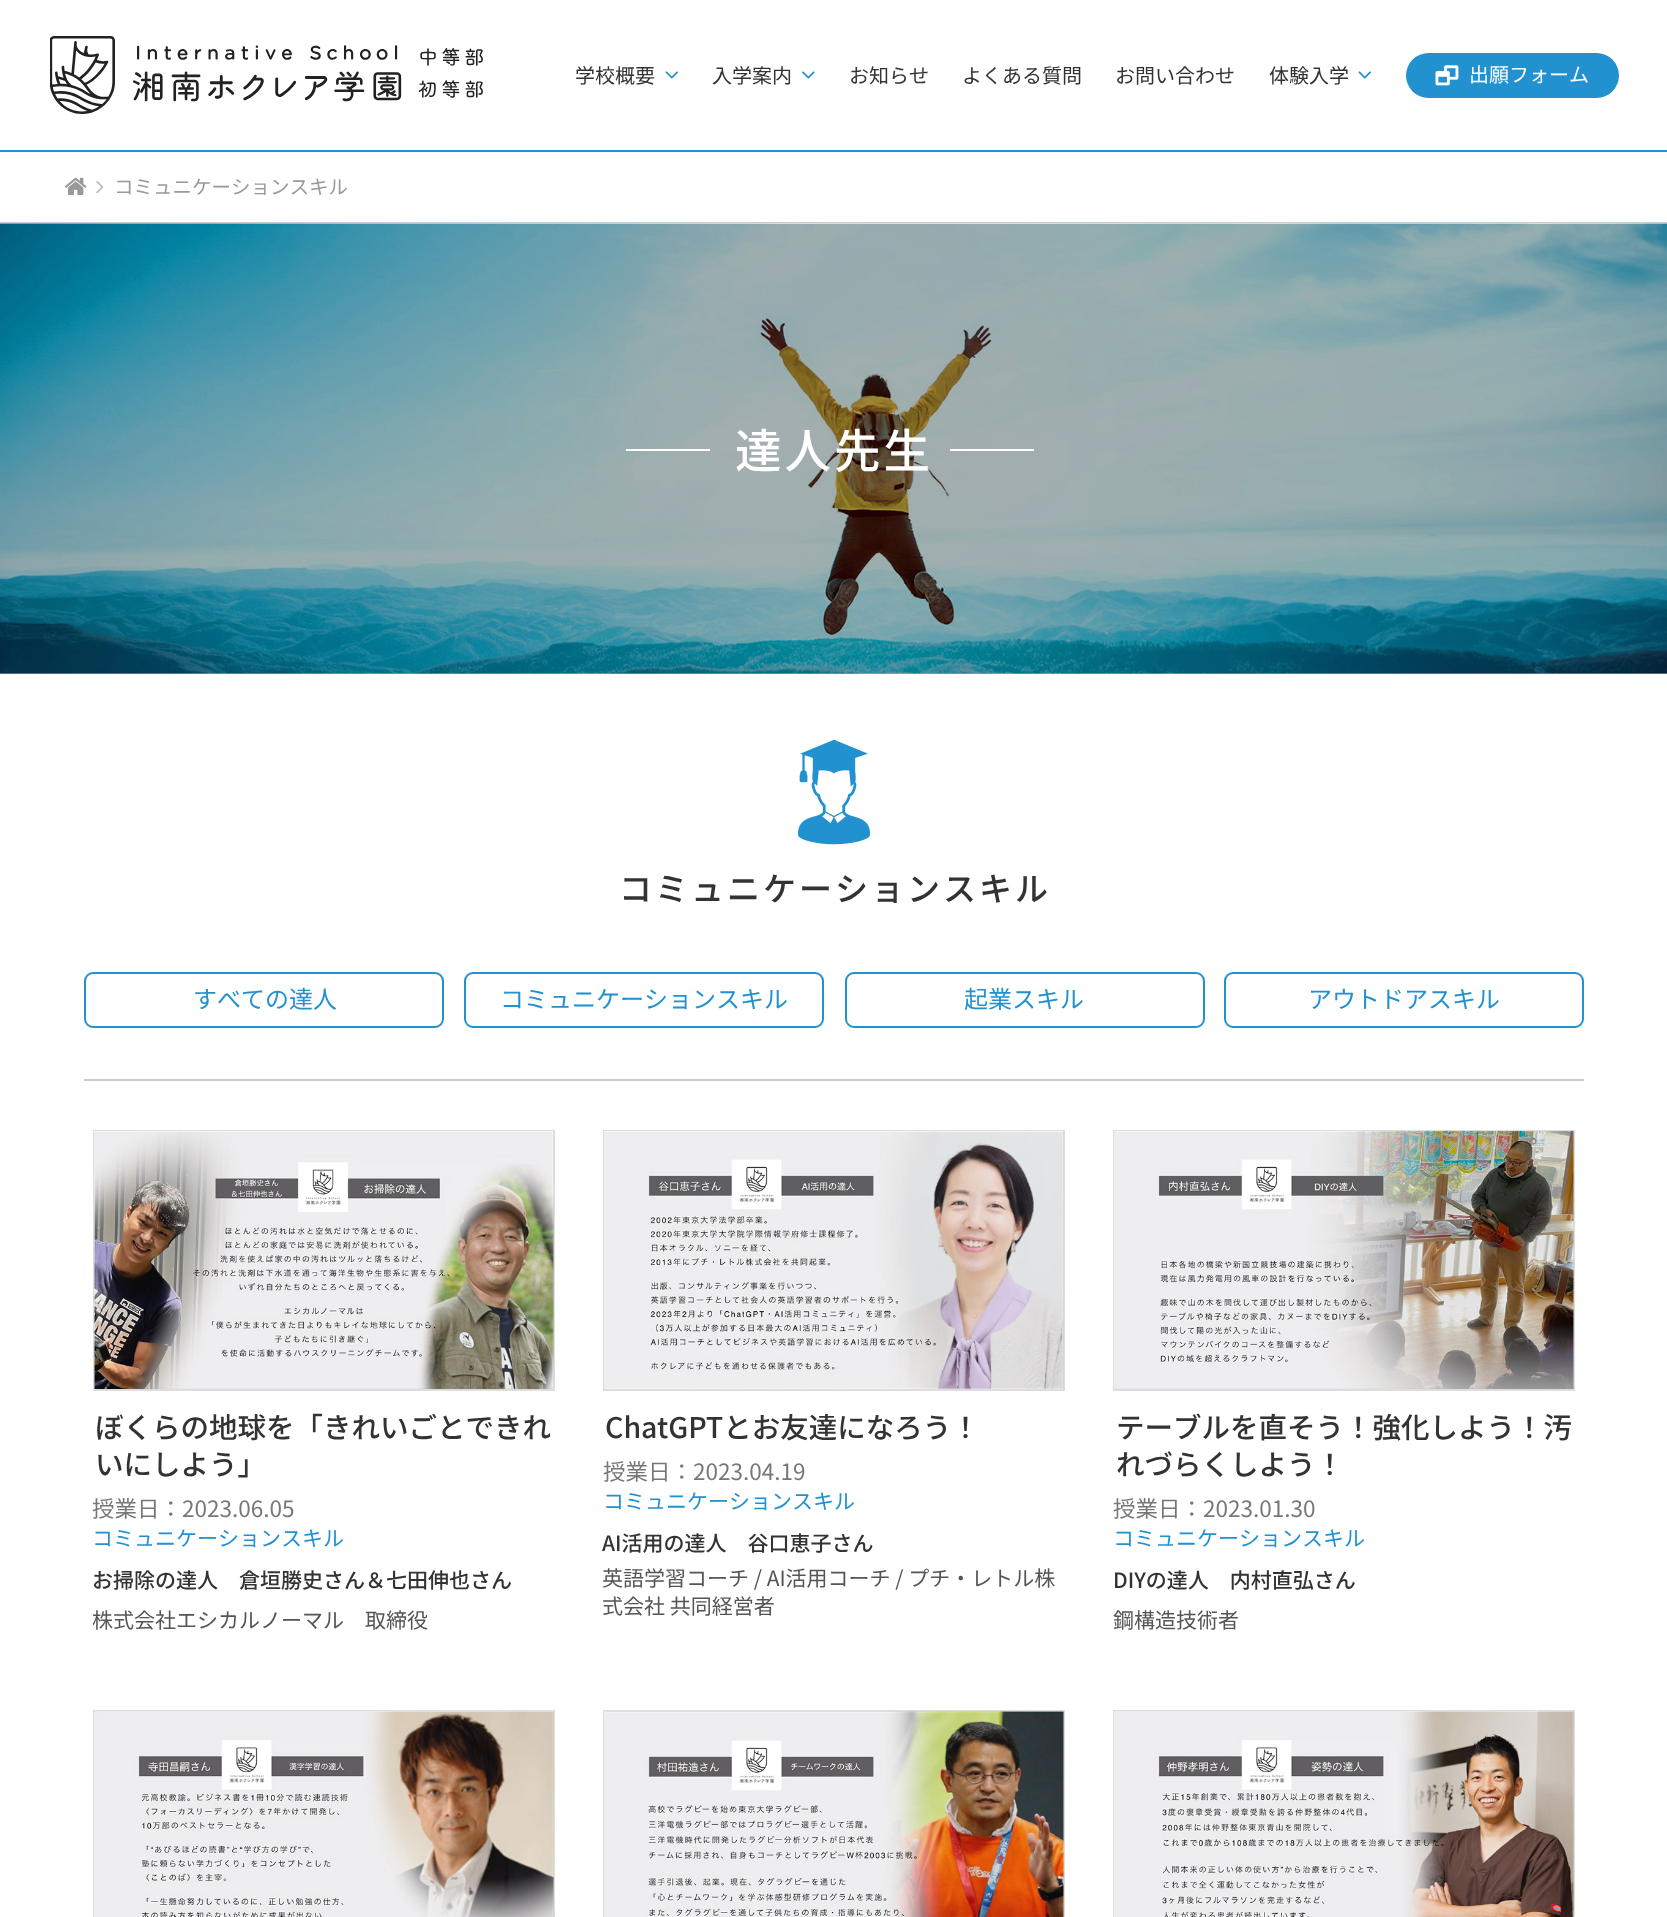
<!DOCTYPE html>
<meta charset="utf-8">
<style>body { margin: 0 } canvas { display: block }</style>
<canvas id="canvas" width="1667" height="1917"></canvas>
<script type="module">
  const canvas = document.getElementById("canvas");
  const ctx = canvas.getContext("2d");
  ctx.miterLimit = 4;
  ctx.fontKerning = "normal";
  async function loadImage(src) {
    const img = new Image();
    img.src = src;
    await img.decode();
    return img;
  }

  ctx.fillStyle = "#acacaa";
  ctx.fillRect(0, 0, 1667, 1917);
  ctx.fillStyle = "#ffffff";
  ctx.fillRect(0, 0, 1667, 150);
  ctx.fillStyle = "#2291d0";
  ctx.fillRect(0, 150, 1667, 2);
  ctx.drawImage(await loadImage("img1.png"), 50, 36, 433, 78);
  ctx.font = "20px Noto Sans JP";
  ctx.fillStyle = "#333333";
  ctx.fillText("学校概要", 575, 83);
  ctx.drawImage(await loadImage("img2.png"), 665, 71, 14, 8);
  ctx.fillText("入学案内", 712, 83);
  ctx.drawImage(await loadImage("img3.png"), 802, 71, 13, 8);
  ctx.fillText("お知らせ", 849, 83);
  ctx.fillText("よくある質問", 962, 83);
  ctx.fillText("お問い合わせ", 1115, 83);
  ctx.fillText("体験入学", 1269, 83);
  ctx.drawImage(await loadImage("img2.png"), 1358, 71, 14, 8);
  ctx.fillStyle = "#2291d0";
  ctx.beginPath();
  ctx.roundRect(1406, 53, 213, 45, 22.5);
  ctx.fill();
  ctx.drawImage(await loadImage("img4.png"), 1435, 65, 24, 21);
  ctx.fillStyle = "#ffffff";
  ctx.fillText("出願フォーム", 1469, 82);
  ctx.fillRect(0, 152, 1667, 70);
  ctx.fillStyle = "#cccccc";
  ctx.fillRect(0, 222, 1667, 2);
  ctx.drawImage(await loadImage("img5.png"), 64, 177, 23, 18);
  ctx.drawImage(await loadImage("img6.png"), 96, 180, 8, 14);
  ctx.font = "19.5px Noto Sans JP";
  ctx.fillStyle = "#999999";
  ctx.fillText("コミュニケーションスキル", 114, 194);
  ctx.drawImage(await loadImage("img7.png"), 0, 223, 1667, 451);
  ctx.fillStyle = "#ffffff";
  ctx.fillRect(626, 449, 84, 2);
  ctx.letterSpacing = "3px";
  ctx.font = "500 46.5px Noto Sans JP";
  ctx.fillText("達人先生", 735, 468);
  ctx.fillRect(950, 449, 84, 2);
  ctx.fillRect(0, 674, 1667, 1243);
  ctx.fillStyle = "#cccccc";
  ctx.fillRect(84, 1079, 1500, 2);
  ctx.drawImage(await loadImage("img8.png"), 798, 740, 72, 105);
  ctx.font = "500 33px Noto Sans JP";
  ctx.fillStyle = "#333333";
  ctx.fillText("コミュニケーションスキル", 619, 901);
  ctx.beginPath();
  ctx.roundRect(85, 973, 358, 54, 8);
  ctx.strokeStyle = "#2291d0";
  ctx.lineWidth = 2;
  ctx.stroke();
  ctx.letterSpacing = "0px";
  ctx.font = "24px Noto Sans JP";
  ctx.fillStyle = "#2291d0";
  ctx.fillText("すべての達人", 193, 1008);
  ctx.beginPath();
  ctx.roundRect(465, 973, 358, 54, 8);
  ctx.stroke();
  ctx.fillText("コミュニケーションスキル", 500, 1008);
  ctx.beginPath();
  ctx.roundRect(846, 973, 358, 54, 8);
  ctx.stroke();
  ctx.fillText("起業スキル", 964, 1008);
  ctx.beginPath();
  ctx.roundRect(1225, 973, 358, 54, 8);
  ctx.stroke();
  ctx.fillText("アウトドアスキル", 1308, 1008);
  ctx.strokeStyle = "#dddddd";
  ctx.strokeRect(94, 1131, 460, 259);
  ctx.drawImage(await loadImage("img9.png"), 94, 1131, 460, 258);
  ctx.font = "500 28.5px Noto Sans JP";
  ctx.fillStyle = "#333333";
  ctx.fillText("ぼくらの地球を「きれいごとできれ", 95, 1438);
  ctx.fillText("いにしよう」", 95, 1475);
  ctx.font = "22.5px Noto Sans JP";
  ctx.fillStyle = "#777777";
  ctx.fillText("授業日：2023.06.05", 92, 1517);
  ctx.font = "21px Noto Sans JP";
  ctx.fillStyle = "#2291d0";
  ctx.fillText("コミュニケーションスキル", 92, 1546);
  ctx.font = "500 21px Noto Sans JP";
  ctx.fillStyle = "#333333";
  ctx.fillText("お掃除の達人　倉垣勝史さん＆七田伸也さん", 92, 1588);
  ctx.font = "21px Noto Sans JP";
  ctx.fillStyle = "#555555";
  ctx.fillText("株式会社エシカルノーマル　取締役", 92, 1628);
  ctx.strokeRect(604, 1131, 460, 259);
  ctx.drawImage(await loadImage("img10.png"), 604, 1131, 460, 258);
  ctx.font = "500 28.5px Noto Sans JP";
  ctx.fillStyle = "#333333";
  ctx.fillText("ChatGPTとお友達になろう！", 605, 1438);
  ctx.font = "22.5px Noto Sans JP";
  ctx.fillStyle = "#777777";
  ctx.fillText("授業日：2023.04.19", 603, 1480);
  ctx.font = "21px Noto Sans JP";
  ctx.fillStyle = "#2291d0";
  ctx.fillText("コミュニケーションスキル", 603, 1509);
  ctx.font = "500 21px Noto Sans JP";
  ctx.fillStyle = "#333333";
  ctx.fillText("AI活用の達人　谷口恵子さん", 602, 1551);
  ctx.font = "21px Noto Sans JP";
  ctx.fillStyle = "#555555";
  ctx.fillText("英語学習コーチ / AI活用コーチ / プチ・レトル株", 602, 1586);
  ctx.fillText("式会社 共同経営者", 602, 1614);
  ctx.strokeRect(1114, 1131, 460, 259);
  ctx.drawImage(await loadImage("img11.png"), 1114, 1131, 460, 258);
  ctx.font = "500 28.5px Noto Sans JP";
  ctx.fillStyle = "#333333";
  ctx.fillText("テーブルを直そう！強化しよう！汚", 1116, 1438);
  ctx.fillText("れづらくしよう！", 1116, 1475);
  ctx.font = "22.5px Noto Sans JP";
  ctx.fillStyle = "#777777";
  ctx.fillText("授業日：2023.01.30", 1113, 1517);
  ctx.font = "21px Noto Sans JP";
  ctx.fillStyle = "#2291d0";
  ctx.fillText("コミュニケーションスキル", 1113, 1546);
  ctx.font = "500 21px Noto Sans JP";
  ctx.fillStyle = "#333333";
  ctx.fillText("DIYの達人　内村直弘さん", 1113, 1588);
  ctx.font = "21px Noto Sans JP";
  ctx.fillStyle = "#555555";
  ctx.fillText("鋼構造技術者", 1113, 1628);
  ctx.strokeRect(94, 1711, 460, 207);
  ctx.drawImage(await loadImage("img12.png"), 94, 1711, 460, 206);
  ctx.strokeRect(604, 1711, 460, 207);
  ctx.drawImage(await loadImage("img13.png"), 604, 1711, 460, 206);
  ctx.strokeRect(1114, 1711, 460, 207);
  ctx.drawImage(await loadImage("img14.png"), 1114, 1711, 460, 206);
</script>
